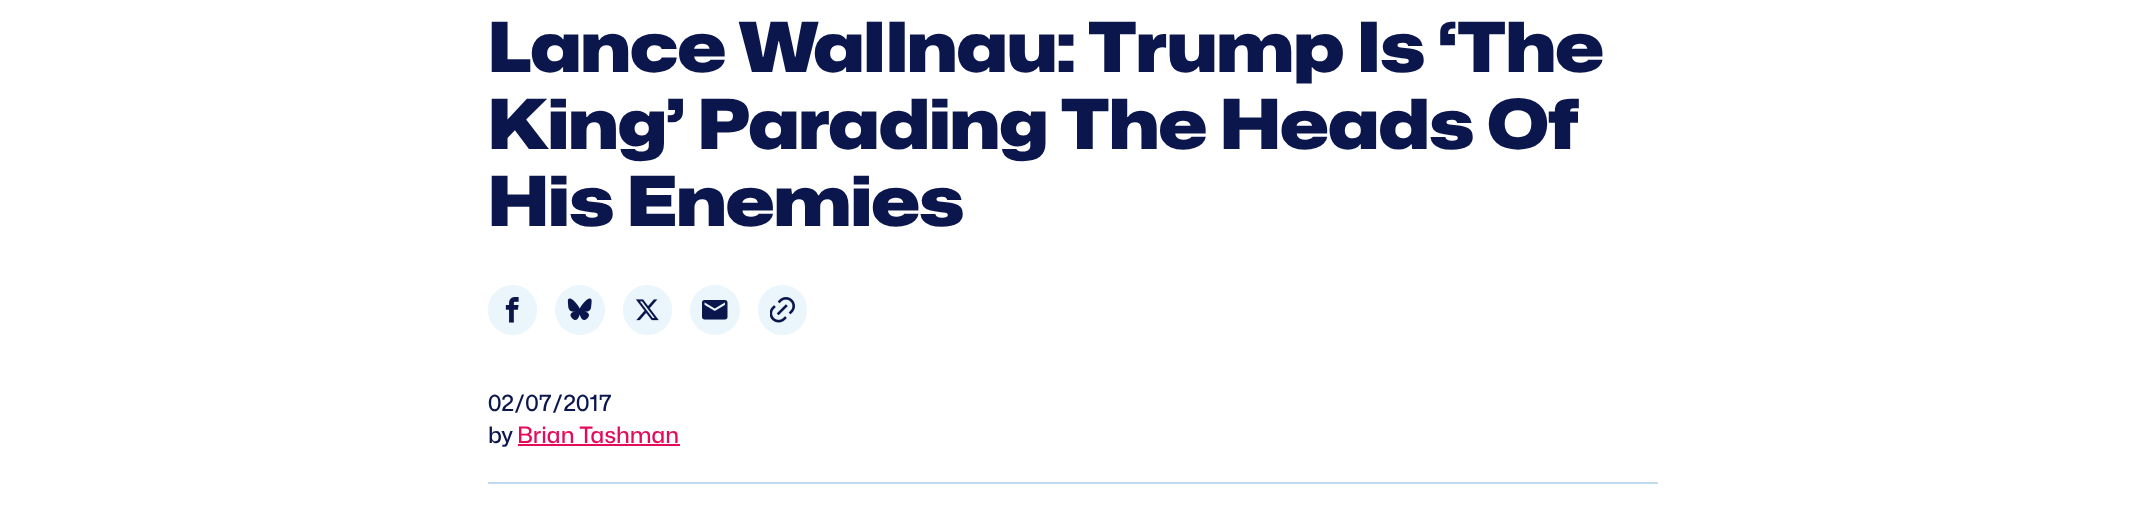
<!DOCTYPE html>
<meta charset="utf-8">
<style>body { margin: 0 } canvas { display: block }</style>
<canvas id="canvas" width="2145" height="521"></canvas>
<script type="module">
  const canvas = document.getElementById("canvas");
  const ctx = canvas.getContext("2d");
  ctx.miterLimit = 4;
  ctx.fontKerning = "normal";
  async function loadImage(src) {
    const img = new Image();
    img.src = src;
    await img.decode();
    return img;
  }

  ctx.fillStyle = "#ffffff";
  ctx.fillRect(0, 0, 2145, 521);
  ctx.letterSpacing = "-0.7px";
  ctx.font = "900 69px Mona Sans";
  ctx.fillStyle = "#0b164c";
  ctx.fillText("Lance Wallnau: Trump Is ‘The", 488, 72);
  ctx.fillText("King’ Parading The Heads Of", 488, 149);
  ctx.fillText("His Enemies", 488, 226);
  ctx.fillStyle = "#eaf5fc";
  ctx.beginPath();
  ctx.roundRect(488, 285, 49, 50, 24.5);
  ctx.fill();
  ctx.drawImage(await loadImage("img1.png"), 505, 297, 14, 26);
  ctx.beginPath();
  ctx.arc(580, 310, 25, 0, Math.PI * 2);
  ctx.fill();
  ctx.drawImage(await loadImage("img2.png"), 567, 298, 25, 22);
  ctx.beginPath();
  ctx.roundRect(623, 285, 49, 50, 24.5);
  ctx.fill();
  ctx.drawImage(await loadImage("img3.png"), 636, 299, 23, 22);
  ctx.beginPath();
  ctx.arc(715, 310, 25, 0, Math.PI * 2);
  ctx.fill();
  ctx.drawImage(await loadImage("img4.png"), 702, 300, 26, 20);
  ctx.beginPath();
  ctx.roundRect(758, 285, 49, 50, 24.5);
  ctx.fill();
  ctx.drawImage(await loadImage("img5.png"), 770, 297, 25, 26);
  ctx.letterSpacing = "0px";
  ctx.font = "500 22.5px Mona Sans";
  ctx.fillStyle = "#0b164c";
  ctx.fillText("02/07/2017", 488, 411);
  ctx.fillText("by", 488, 443);
  ctx.fillStyle = "#e50b5b";
  ctx.fillText("Brian Tashman", 517, 443);
  ctx.fillRect(518, 444, 162, 2);
  ctx.fillStyle = "#c0daee";
  ctx.fillRect(488, 482, 1170, 2);
</script>
